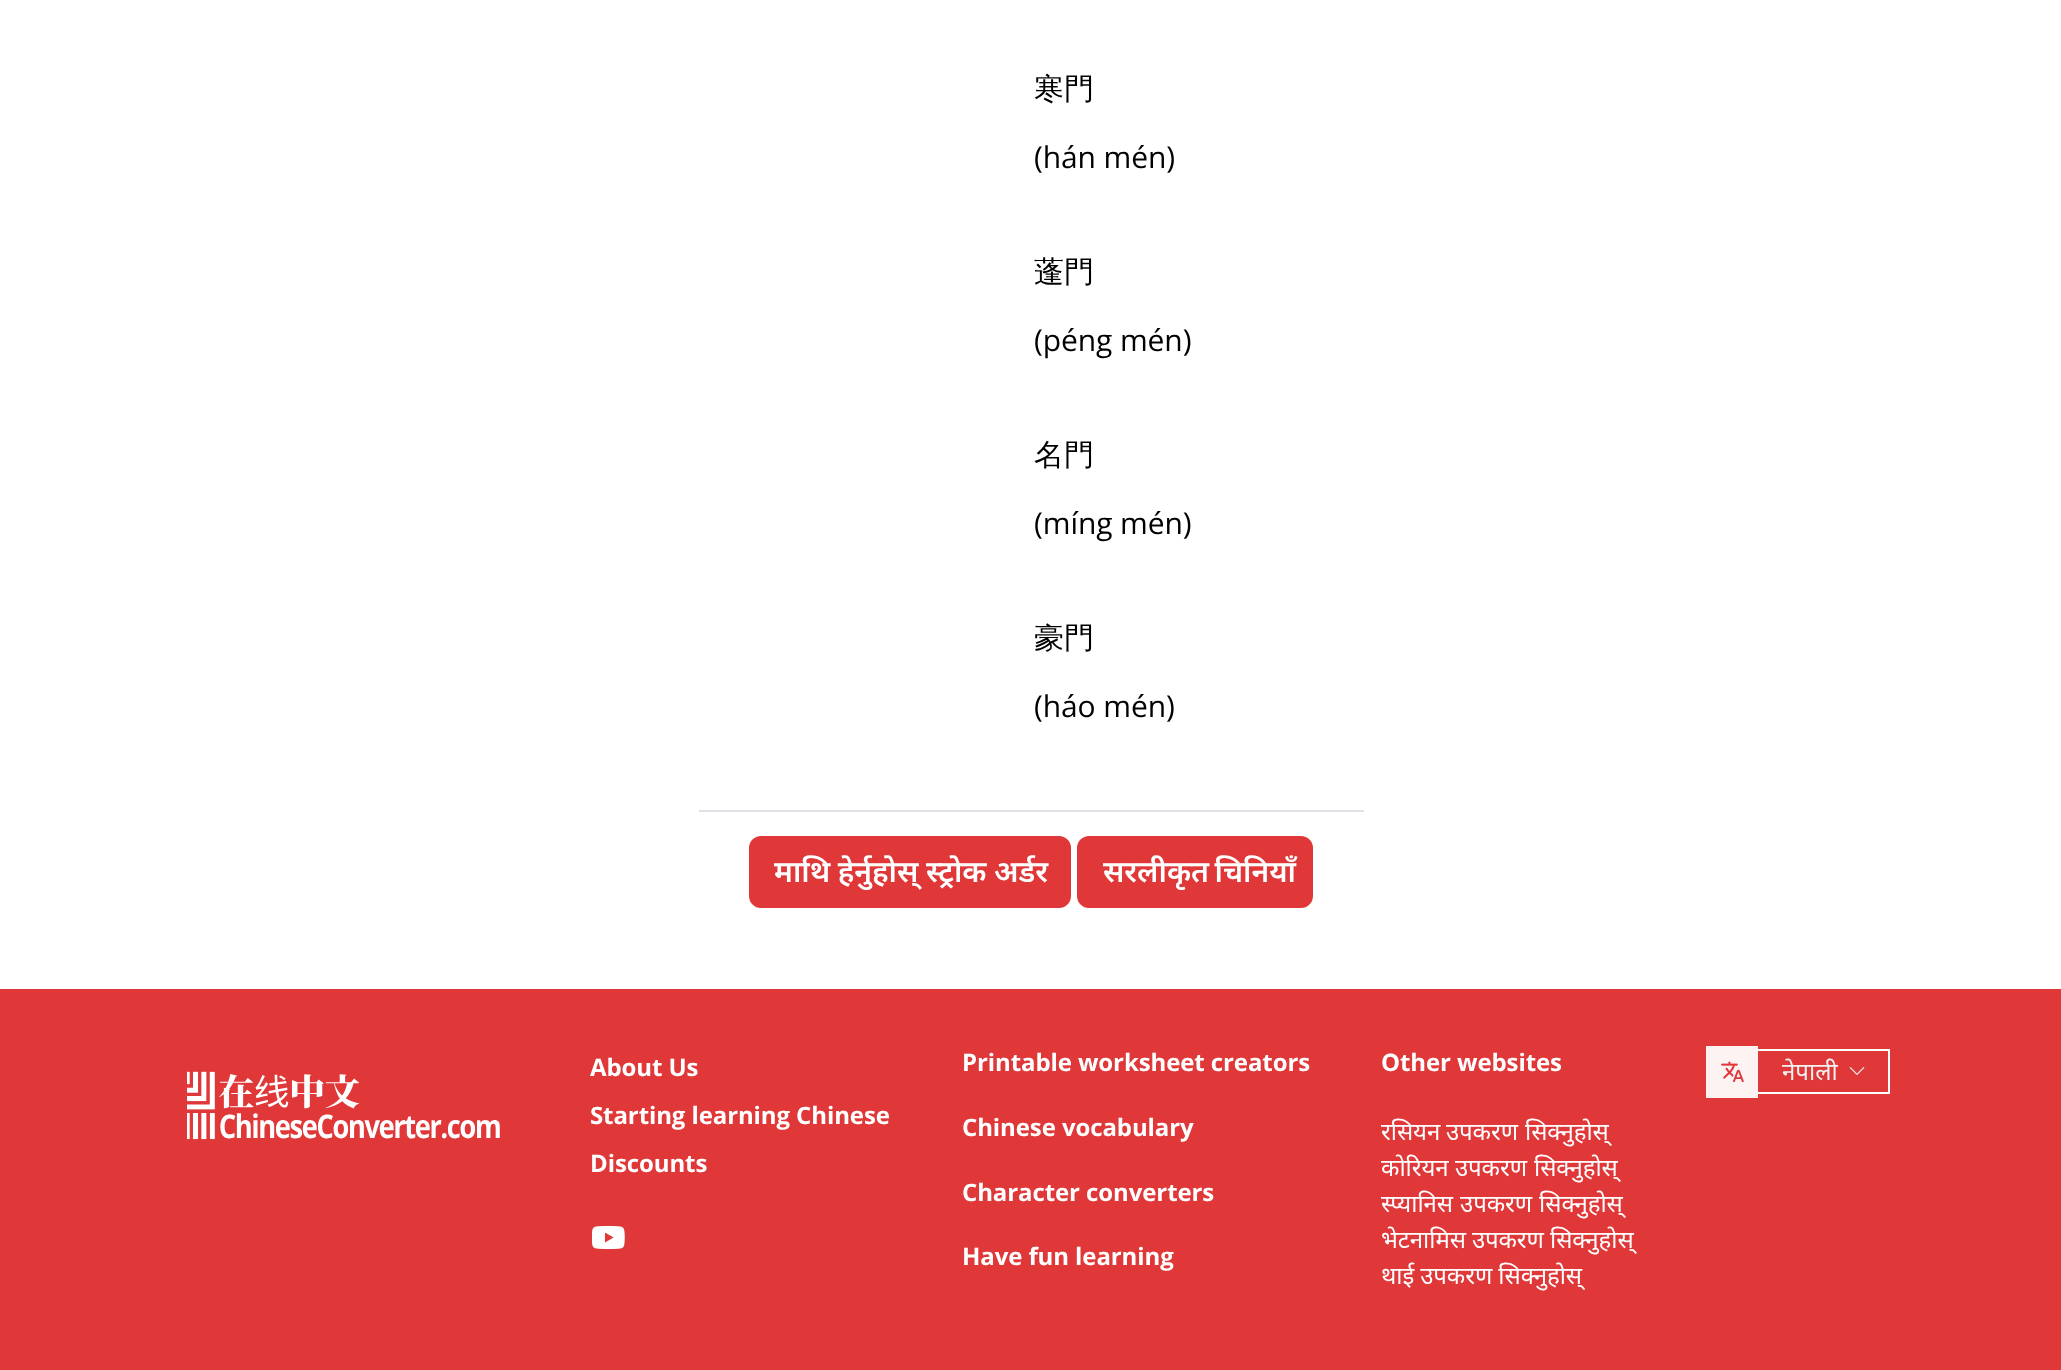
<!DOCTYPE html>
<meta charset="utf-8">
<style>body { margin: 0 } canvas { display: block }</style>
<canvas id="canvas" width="2061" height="1370"></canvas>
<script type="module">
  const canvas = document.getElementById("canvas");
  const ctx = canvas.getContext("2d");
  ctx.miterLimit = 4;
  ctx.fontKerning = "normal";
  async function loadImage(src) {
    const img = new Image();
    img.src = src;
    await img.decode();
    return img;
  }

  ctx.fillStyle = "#ffffff";
  ctx.fillRect(0, 0, 2061, 1370);
  ctx.fillStyle = "#dee2e6";
  ctx.fillRect(699, 810, 665, 2);
  ctx.letterSpacing = "-0.1px";
  ctx.font = "500 30px WenQuanYi Zen Hei";
  ctx.fillStyle = "#000000";
  ctx.fillText("寒門", 1034, 99);
  ctx.font = "30px Open Sans";
  ctx.fillText("(hán mén)", 1034, 168);
  ctx.font = "500 30px WenQuanYi Zen Hei";
  ctx.fillText("蓬門", 1034, 282);
  ctx.font = "30px Open Sans";
  ctx.fillText("(péng mén)", 1034, 351);
  ctx.font = "500 30px WenQuanYi Zen Hei";
  ctx.fillText("名門", 1034, 465);
  ctx.font = "30px Open Sans";
  ctx.fillText("(míng mén)", 1034, 534);
  ctx.font = "500 30px WenQuanYi Zen Hei";
  ctx.fillText("豪門", 1034, 648);
  ctx.font = "30px Open Sans";
  ctx.fillText("(háo mén)", 1034, 717);
  ctx.fillStyle = "#e03738";
  ctx.beginPath();
  ctx.roundRect(750, 837, 320, 70, 11);
  ctx.fill();
  ctx.strokeStyle = "#e03738";
  ctx.lineWidth = 2;
  ctx.stroke();
  ctx.font = "600 30px Noto Sans";
  ctx.fillStyle = "#ffffff";
  ctx.fillText("माथि हेर्नुहोस् स्ट्रोक अर्डर", 774, 882);
  ctx.fillStyle = "#e03738";
  ctx.beginPath();
  ctx.roundRect(1078, 837, 234, 70, 11);
  ctx.fill();
  ctx.stroke();
  ctx.wordSpacing = "-2px";
  ctx.fillStyle = "#ffffff";
  ctx.fillText("सरलीकृत चिनियाँ", 1103, 882);
  ctx.fillStyle = "#e03738";
  ctx.fillRect(0, 989, 2061, 381);
  ctx.drawImage(await loadImage("img1.png"), 187, 1071, 313, 69);
  ctx.wordSpacing = "0px";
  ctx.font = "bold 24px Open Sans";
  ctx.fillStyle = "#ffffff";
  ctx.fillText("About Us", 590, 1076);
  ctx.fillText("Starting learning Chinese", 590, 1124);
  ctx.fillText("Discounts", 590, 1172);
  ctx.drawImage(await loadImage("img2.png"), 592, 1225, 33, 25);
  ctx.fillText("Printable worksheet creators", 962, 1071);
  ctx.fillText("Chinese vocabulary", 962, 1136);
  ctx.fillText("Character converters", 962, 1201);
  ctx.fillText("Have fun learning", 962, 1265);
  ctx.fillText("Other websites", 1381, 1071);
  ctx.font = "24px Noto Sans";
  ctx.fillText("रसियन", 1381, 1140);
  ctx.wordSpacing = "1px";
  ctx.fillText("उपकरण सिक्नुहोस्", 1446, 1140);
  ctx.wordSpacing = "0px";
  ctx.fillText("कोरियन", 1381, 1176);
  ctx.wordSpacing = "1px";
  ctx.fillText("उपकरण सिक्नुहोस्", 1455, 1176);
  ctx.fillText("स्प्यानिस उपकरण सिक्नुहोस्", 1381, 1212);
  ctx.wordSpacing = "0px";
  ctx.fillText("भेटनामिस उपकरण सिक्नुहोस्", 1381, 1248);
  ctx.fillText("थाई उपकरण सिक्नुहोस्", 1381, 1284);
  ctx.strokeStyle = "#ffffff";
  ctx.strokeRect(1707, 1050, 182, 43);
  ctx.fillStyle = "#fdf3f3";
  ctx.fillRect(1706, 1046, 52, 52);
  ctx.drawImage(await loadImage("img3.png"), 1721, 1061, 23, 22);
  ctx.letterSpacing = "0px";
  ctx.fillStyle = "#f2f2f2";
  ctx.fillText("नेपाली", 1782, 1080);
  ctx.drawImage(await loadImage("img4.png"), 1849, 1067, 16, 8);
</script>
